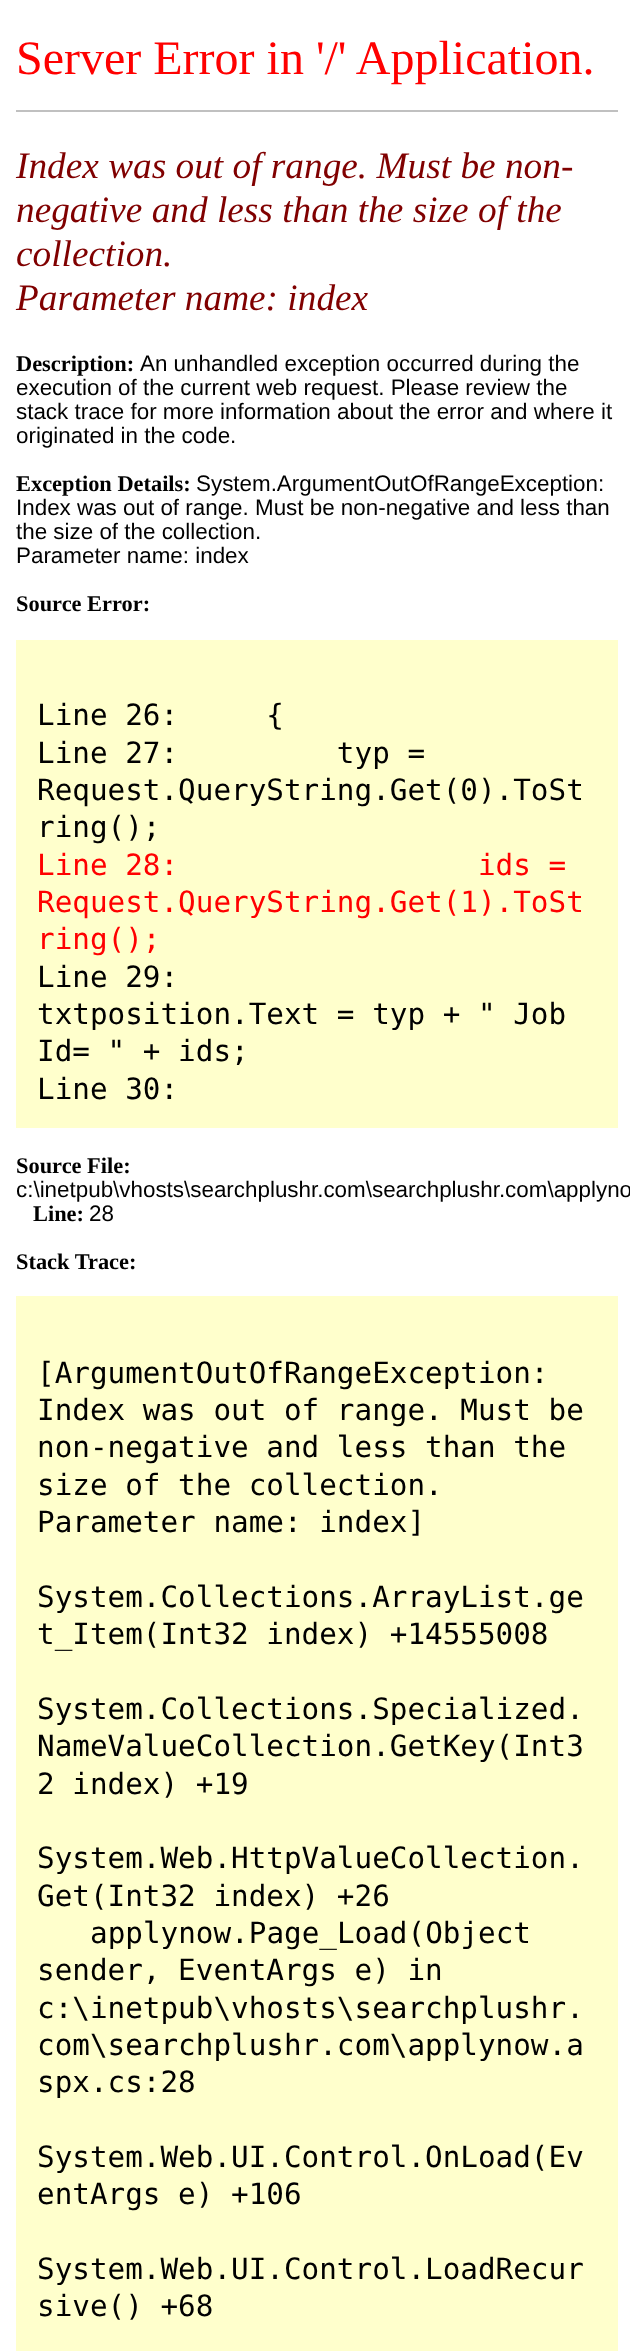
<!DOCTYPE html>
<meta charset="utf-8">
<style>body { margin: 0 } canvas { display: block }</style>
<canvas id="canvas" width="630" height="2351"></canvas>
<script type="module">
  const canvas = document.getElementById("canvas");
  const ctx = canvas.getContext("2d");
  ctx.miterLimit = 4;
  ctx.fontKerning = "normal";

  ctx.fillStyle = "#ffffff";
  ctx.fillRect(0, 0, 630, 2351);
  ctx.font = "48px Liberation Serif";
  ctx.fillStyle = "#ff0000";
  ctx.fillText("Server Error in '/' Application.", 16, 74);
  ctx.fillStyle = "#c0c0c0";
  ctx.fillRect(16, 110, 602, 2);
  ctx.font = "italic 37.3px Liberation Serif";
  ctx.fillStyle = "#800000";
  ctx.fillText("Index was out of range. Must be non-", 16, 178);
  ctx.fillText("negative and less than the size of the", 16, 222);
  ctx.fillText("collection.", 16, 266);
  ctx.fillText("Parameter name: index", 16, 310);
  ctx.font = "bold 22.4px Liberation Serif";
  ctx.fillStyle = "#000000";
  ctx.fillText("Description:", 16, 371);
  ctx.font = "22.4px Liberation Sans";
  ctx.fillText("An unhandled exception occurred during the", 140, 371);
  ctx.fillText("execution of the current web request. Please review the", 16, 395);
  ctx.fillText("stack trace for more information about the error and where it", 16, 419);
  ctx.fillText("originated in the code.", 16, 443);
  ctx.font = "bold 22.4px Liberation Serif";
  ctx.fillText("Exception Details:", 16, 491);
  ctx.font = "22.4px Liberation Sans";
  ctx.fillText("System.ArgumentOutOfRangeException:", 196, 491);
  ctx.fillText("Index was out of range. Must be non-negative and less than", 16, 515);
  ctx.fillText("the size of the collection.", 16, 539);
  ctx.fillText("Parameter name: index", 16, 563);
  ctx.font = "bold 22.4px Liberation Serif";
  ctx.fillText("Source Error:", 16, 611);
  ctx.fillStyle = "#ffffcc";
  ctx.fillRect(16, 640, 602, 488);
  ctx.font = "29.3px DejaVu Sans Mono";
  ctx.fillStyle = "#000000";
  ctx.fillText("Line 26:     {", 37, 725);
  ctx.fillText("Line 27:         typ =", 37, 763);
  ctx.fillText("Request.QueryString.Get(0).ToSt", 37, 800);
  ctx.fillText("ring();", 37, 837);
  ctx.fillStyle = "#ff0000";
  ctx.fillText("Line 28:                 ids =", 37, 875);
  ctx.fillText("Request.QueryString.Get(1).ToSt", 37, 912);
  ctx.fillText("ring();", 37, 949);
  ctx.fillStyle = "#000000";
  ctx.fillText("Line 29:", 37, 987);
  ctx.fillText("txtposition.Text = typ + \" Job", 37, 1024);
  ctx.fillText("Id= \" + ids;", 37, 1061);
  ctx.fillText("Line 30:", 37, 1099);
  ctx.font = "bold 22.4px Liberation Serif";
  ctx.fillText("Source File:", 16, 1173);
  ctx.font = "22.4px Liberation Sans";
  ctx.fillText("c:\\inetpub\\vhosts\\searchplushr.com\\searchplushr.com\\applyno", 16, 1197);
  ctx.font = "bold 22.4px Liberation Serif";
  ctx.fillText("Line:", 33, 1221);
  ctx.font = "22.4px Liberation Sans";
  ctx.fillText("28", 89, 1221);
  ctx.font = "bold 22.4px Liberation Serif";
  ctx.fillText("Stack Trace:", 16, 1269);
  ctx.fillStyle = "#ffffcc";
  ctx.fillRect(16, 1296, 602, 1055);
  ctx.font = "29.3px DejaVu Sans Mono";
  ctx.fillStyle = "#000000";
  ctx.fillText("[ArgumentOutOfRangeException:", 37, 1383);
  ctx.fillText("Index was out of range. Must be", 37, 1420);
  ctx.fillText("non-negative and less than the", 37, 1457);
  ctx.fillText("size of the collection.", 37, 1495);
  ctx.fillText("Parameter name: index]", 37, 1532);
  ctx.fillText("System.Collections.ArrayList.ge", 37, 1607);
  ctx.fillText("t_Item(Int32 index) +14555008", 37, 1644);
  ctx.fillText("System.Collections.Specialized.", 37, 1719);
  ctx.fillText("NameValueCollection.GetKey(Int3", 37, 1756);
  ctx.fillText("2 index) +19", 37, 1794);
  ctx.fillText("System.Web.HttpValueCollection.", 37, 1868);
  ctx.fillText("Get(Int32 index) +26", 37, 1906);
  ctx.fillText("applynow.Page_Load(Object", 90, 1943);
  ctx.fillText("sender, EventArgs e) in", 37, 1980);
  ctx.fillText("c:\\inetpub\\vhosts\\searchplushr.", 37, 2018);
  ctx.fillText("com\\searchplushr.com\\applynow.a", 37, 2055);
  ctx.fillText("spx.cs:28", 37, 2092);
  ctx.fillText("System.Web.UI.Control.OnLoad(Ev", 37, 2167);
  ctx.fillText("entArgs e) +106", 37, 2204);
  ctx.fillText("System.Web.UI.Control.LoadRecur", 37, 2279);
  ctx.fillText("sive() +68", 37, 2316);
</script>
